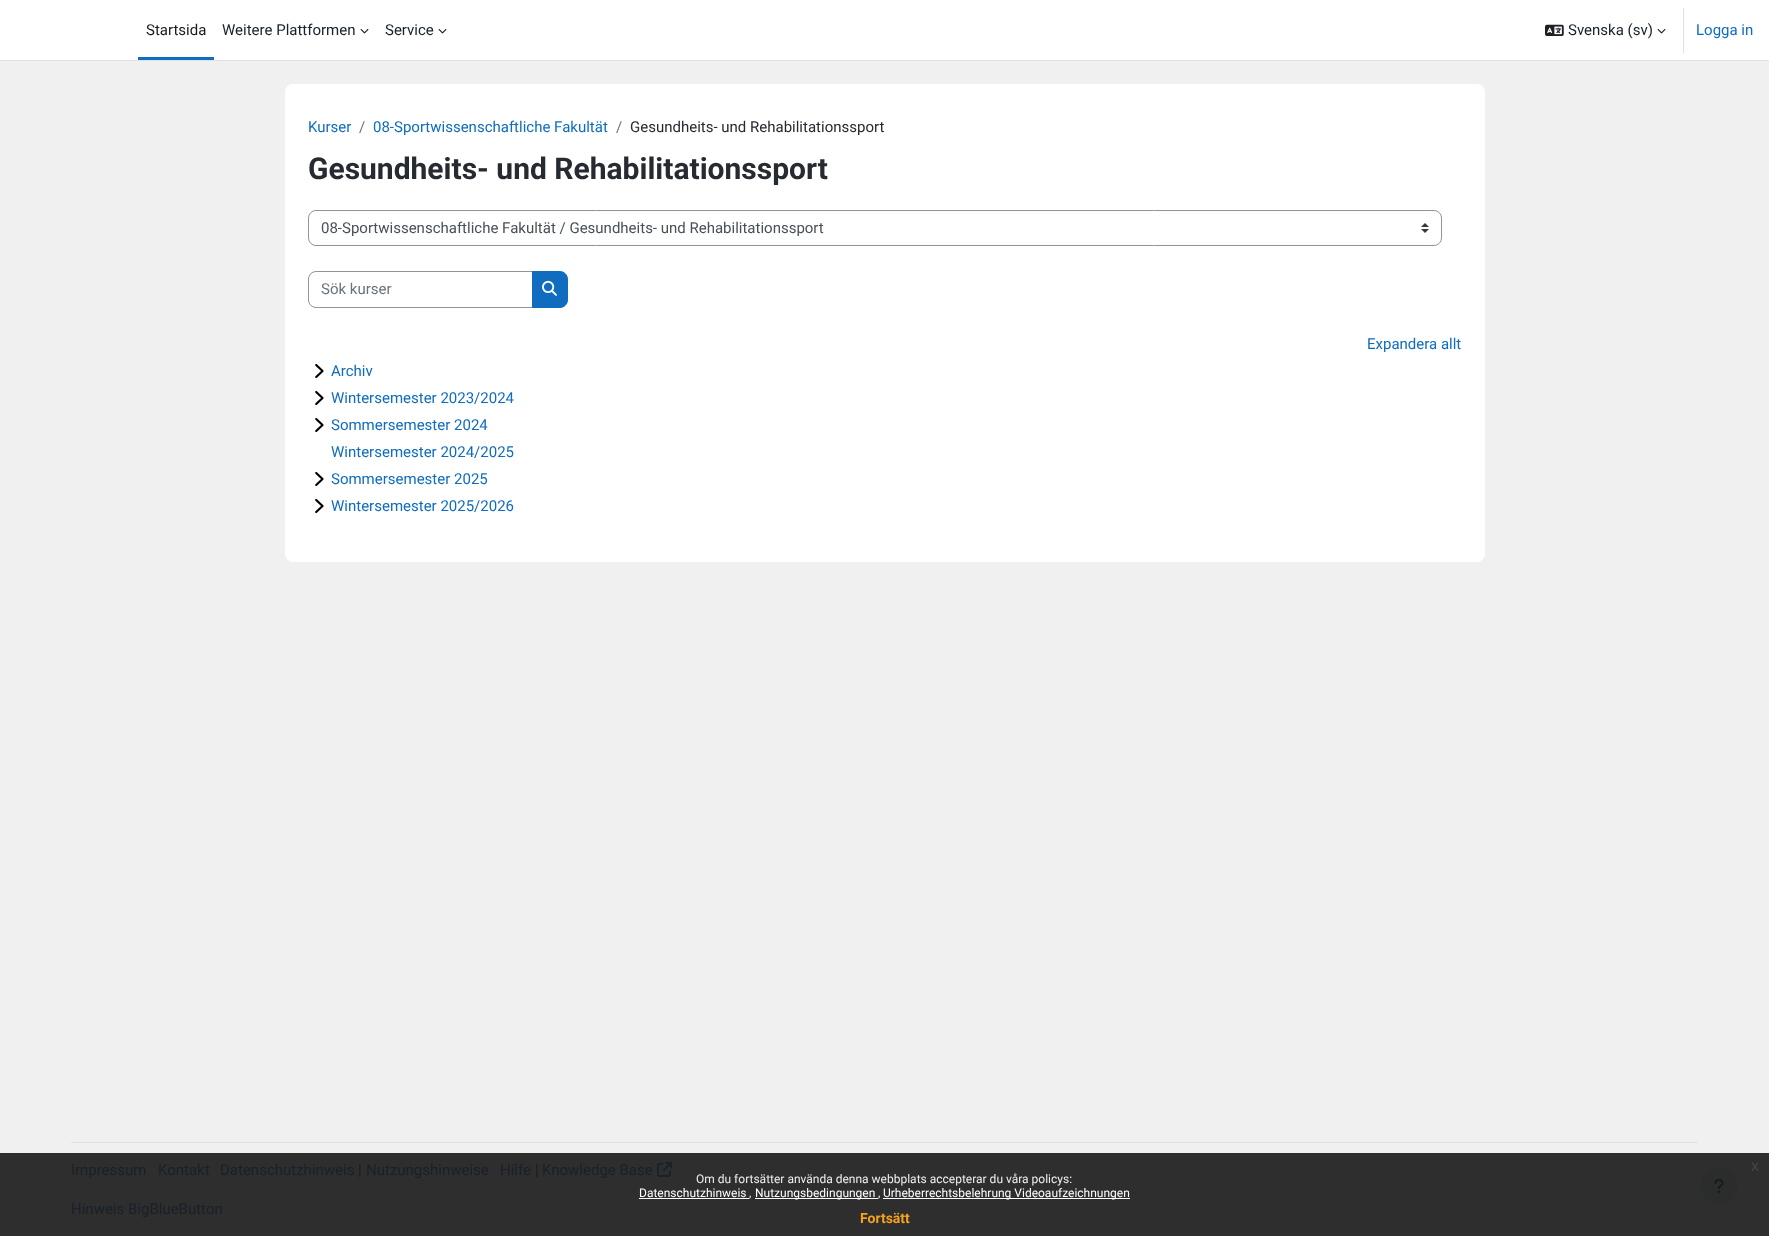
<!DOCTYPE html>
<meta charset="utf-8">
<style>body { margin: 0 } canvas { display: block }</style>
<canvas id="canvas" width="1769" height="1236"></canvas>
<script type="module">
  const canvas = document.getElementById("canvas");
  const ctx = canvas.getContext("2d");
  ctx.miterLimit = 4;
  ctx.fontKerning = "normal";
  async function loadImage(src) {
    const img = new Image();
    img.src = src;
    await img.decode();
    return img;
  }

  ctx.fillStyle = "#f0f0f0";
  ctx.fillRect(0, 0, 1769, 1236);
  ctx.fillStyle = "#2e2e2e";
  ctx.fillRect(0, 1153, 1769, 83);
  ctx.fillStyle = "#ffffff";
  ctx.fillRect(0, 0, 1769, 60);
  ctx.fillStyle = "#dee2e6";
  ctx.fillRect(0, 60, 1769, 1);
  ctx.fillStyle = "#0f6cbf";
  ctx.fillRect(138, 57, 76, 3);
  ctx.font = "15px Roboto";
  ctx.fillStyle = "#1a1b1b";
  ctx.fillText("Startsida", 146, 35);
  ctx.fillStyle = "#18212a";
  ctx.fillText("Weitere Plattformen", 222, 35);
  ctx.drawImage(await loadImage("img1.png"), 360, 29, 9, 5);
  ctx.fillText("Service", 385, 35);
  ctx.drawImage(await loadImage("img1.png"), 438, 29, 9, 5);
  ctx.drawImage(await loadImage("img2.png"), 1545, 24, 19, 12);
  ctx.fillText("Svenska (sv)", 1568, 35);
  ctx.drawImage(await loadImage("img1.png"), 1657, 29, 9, 5);
  ctx.fillStyle = "#dee2e6";
  ctx.fillRect(1683, 8, 1, 45);
  ctx.fillStyle = "#0f6cbf";
  ctx.fillText("Logga in", 1696, 35);
  ctx.fillStyle = "#ffffff";
  ctx.beginPath();
  ctx.roundRect(285, 84, 1200, 478, 8);
  ctx.fill();
  ctx.fillStyle = "#0f6cbf";
  ctx.fillText("Kurser", 308, 132);
  ctx.fillStyle = "#6a737b";
  ctx.fillText("/", 359, 132);
  ctx.fillStyle = "#0f6cbf";
  ctx.fillText("08-Sportwissenschaftliche Fakultät", 373, 132);
  ctx.fillStyle = "#6a737b";
  ctx.fillText("/", 616, 132);
  ctx.fillStyle = "#262a31";
  ctx.fillText("Gesundheits- und Rehabilitationssport", 630, 132);
  ctx.font = "bold 30px Roboto";
  ctx.fillText("Gesundheits- und Rehabilitationssport", 308, 179);
  ctx.drawImage(await loadImage("img3.png"), 1421, 223, 8, 10);
  ctx.beginPath();
  ctx.roundRect(308.5, 210.5, 1133, 35, 7.5);
  ctx.strokeStyle = "#8f959e";
  ctx.stroke();
  ctx.font = "15px Roboto";
  ctx.fillStyle = "#495057";
  ctx.fillText("08-Sportwissenschaftliche Fakultät / Gesundheits- und Rehabilitationssport", 321, 233);
  ctx.beginPath();
  ctx.roundRect(308.5, 271.5, 224, 36, [7.5, 0, 0, 7.5]);
  ctx.stroke();
  ctx.fillStyle = "#6a737b";
  ctx.fillText("Sök kurser", 321, 294);
  ctx.fillStyle = "#0f6cbf";
  ctx.beginPath();
  ctx.roundRect(532.5, 271.5, 35, 36, [0, 7.5, 7.5, 0]);
  ctx.fill();
  ctx.strokeStyle = "#0f6cbf";
  ctx.stroke();
  ctx.drawImage(await loadImage("img4.png"), 542, 280, 15, 16);
  ctx.fillText("Expandera allt", 1367, 349);
  ctx.drawImage(await loadImage("img5.png"), 315, 364, 9, 14);
  ctx.fillText("Archiv", 331, 376);
  ctx.drawImage(await loadImage("img5.png"), 315, 391, 9, 14);
  ctx.fillText("Wintersemester 2023/2024", 331, 403);
  ctx.drawImage(await loadImage("img5.png"), 315, 418, 9, 14);
  ctx.fillText("Sommersemester 2024", 331, 430);
  ctx.fillText("Wintersemester 2024/2025", 331, 457);
  ctx.drawImage(await loadImage("img5.png"), 315, 472, 9, 14);
  ctx.fillText("Sommersemester 2025", 331, 484);
  ctx.drawImage(await loadImage("img6.png"), 315, 499, 9, 14);
  ctx.fillText("Wintersemester 2025/2026", 331, 511);
  ctx.fillStyle = "#dee2e6";
  ctx.fillRect(71, 1142, 1627, 1);
  ctx.fillStyle = "#18212a";
  ctx.fillText("Impressum", 71, 1175);
  ctx.fillText("Kontakt", 158, 1175);
  ctx.fillText("Datenschutzhinweis", 220, 1175);
  ctx.fillStyle = "#1a1b1b";
  ctx.fillText("|", 358, 1175);
  ctx.fillStyle = "#18212a";
  ctx.fillText("Nutzungshinweise", 366, 1175);
  ctx.fillText("Hilfe", 500, 1175);
  ctx.fillStyle = "#1a1b1b";
  ctx.fillText("|", 535, 1175);
  ctx.fillStyle = "#18212a";
  ctx.fillText("Knowledge Base", 542, 1175);
  ctx.drawImage(await loadImage("img7.png"), 657, 1161, 15, 16);
  ctx.fillText("Hinweis BigBlueButton", 71, 1214);
  ctx.fillStyle = "#2b2c2c";
  ctx.beginPath();
  ctx.arc(1719, 1186, 18, 0, Math.PI * 2);
  ctx.fill();
  ctx.drawImage(await loadImage("img8.png"), 1714, 1179, 10, 14);
  ctx.font = "16px Liberation Sans";
  ctx.fillStyle = "#464646";
  ctx.fillText("x", 1751, 1171);
  ctx.font = "12px Roboto";
  ctx.fillStyle = "#efefef";
  ctx.fillText("Om du fortsätter använda denna webbplats accepterar du våra policys:", 696, 1183);
  ctx.fillStyle = "#ffffff";
  ctx.fillText("Datenschutzhinweis", 639, 1197);
  ctx.fillRect(639, 1198, 110, 1);
  ctx.fillStyle = "#efefef";
  ctx.fillText(",", 749, 1197);
  ctx.fillStyle = "#ffffff";
  ctx.fillRect(755, 1198, 123, 1);
  ctx.fillText("Nutzungsbedingungen", 755, 1197);
  ctx.fillStyle = "#efefef";
  ctx.fillText(",", 878, 1197);
  ctx.fillStyle = "#ffffff";
  ctx.fillRect(883, 1198, 247, 1);
  ctx.fillText("Urheberrechtsbelehrung Videoaufzeichnungen", 883, 1197);
  ctx.font = "bold 14px Roboto";
  ctx.fillStyle = "#f6a21d";
  ctx.fillText("Fortsätt", 860, 1223);
</script>
